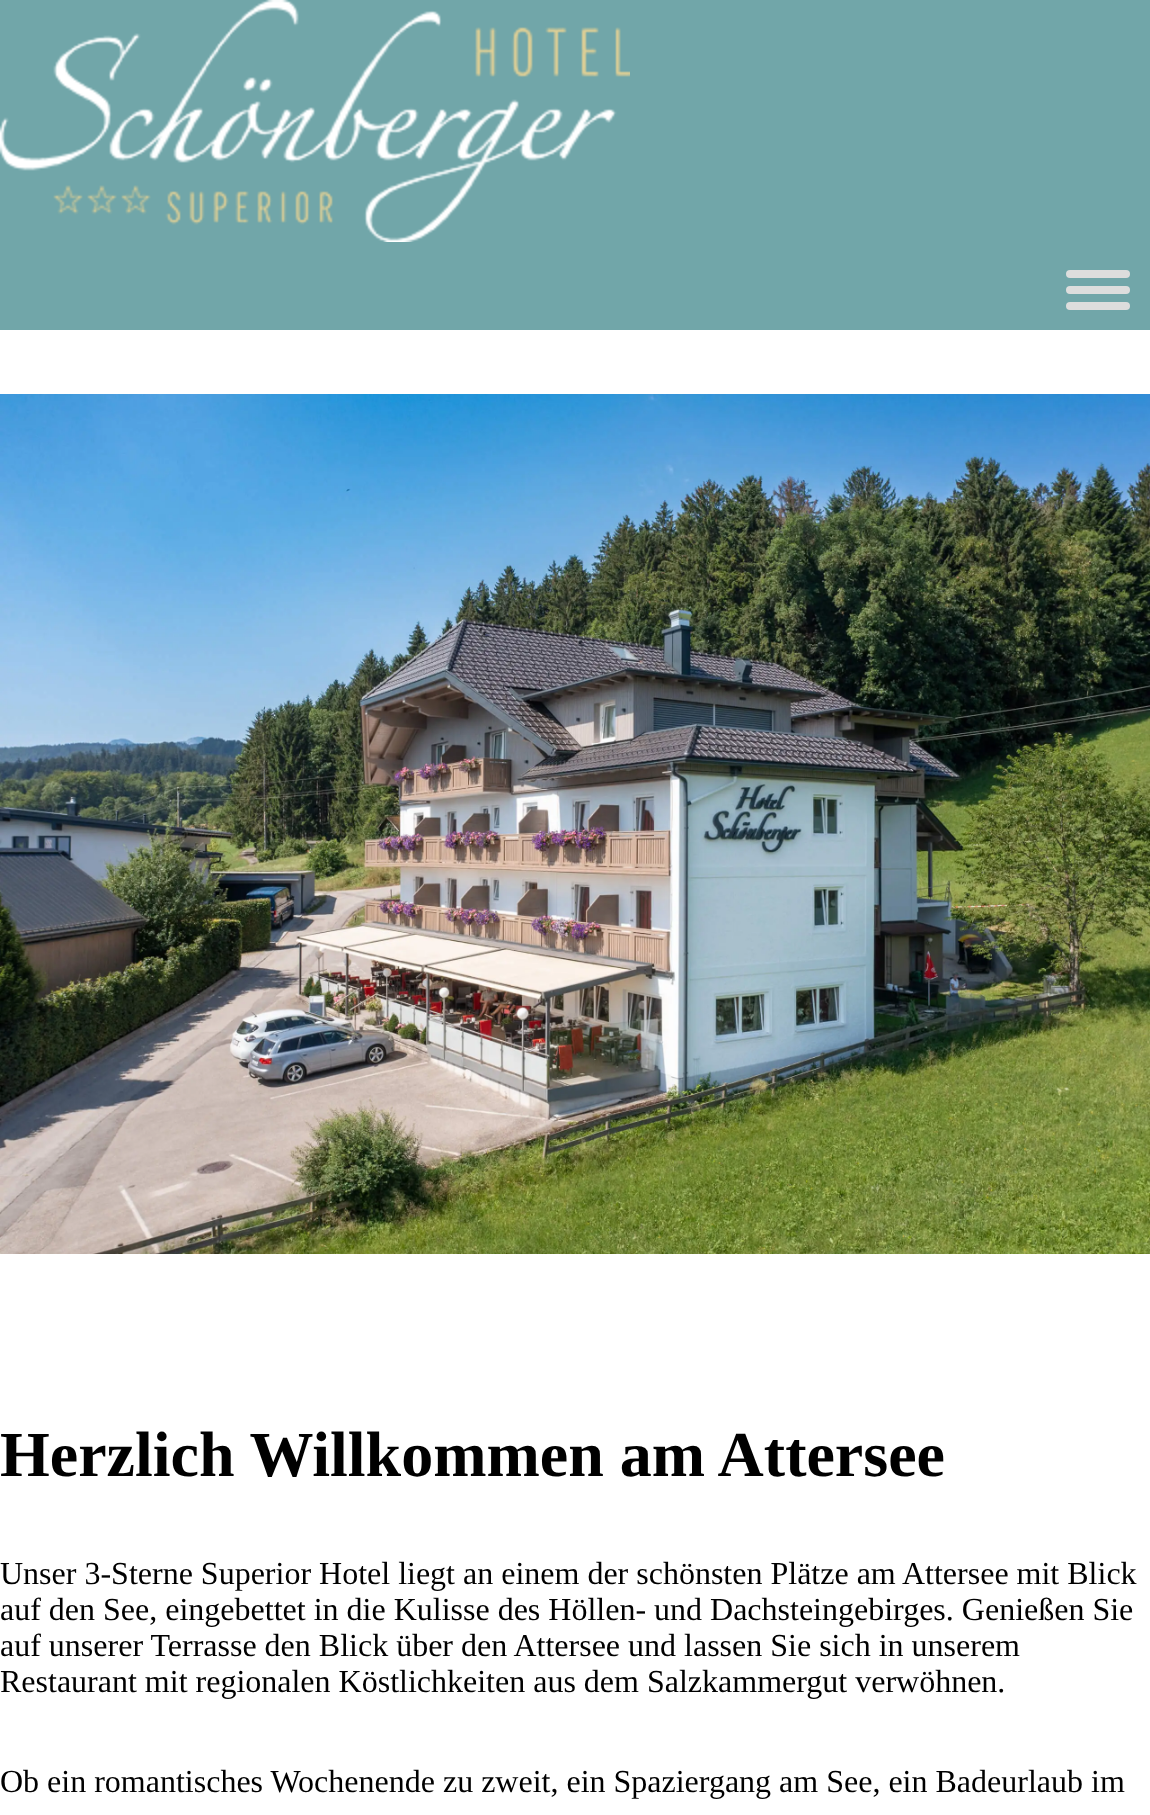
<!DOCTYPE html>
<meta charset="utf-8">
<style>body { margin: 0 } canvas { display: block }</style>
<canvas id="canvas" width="1150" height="1815"></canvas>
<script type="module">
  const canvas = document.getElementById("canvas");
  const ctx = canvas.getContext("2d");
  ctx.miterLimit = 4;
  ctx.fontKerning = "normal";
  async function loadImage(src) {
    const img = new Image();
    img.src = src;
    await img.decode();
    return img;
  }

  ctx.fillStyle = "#ffffff";
  ctx.fillRect(0, 0, 1150, 1815);
  ctx.fillStyle = "#71a6a9";
  ctx.fillRect(0, 0, 1150, 330);
  ctx.drawImage(await loadImage("img1.png"), 0, 0, 630, 242);
  ctx.fillStyle = "#dddddd";
  ctx.beginPath();
  ctx.roundRect(1066, 270, 64, 8, 4);
  ctx.fill();
  ctx.beginPath();
  ctx.roundRect(1066, 286, 64, 8, 4);
  ctx.fill();
  ctx.beginPath();
  ctx.roundRect(1066, 302, 64, 8, 4);
  ctx.fill();
  ctx.drawImage(await loadImage("img2.png"), 0, 394, 1150, 860);
  ctx.font = "bold 64px Liberation Serif";
  ctx.fillStyle = "#000000";
  ctx.fillText("Herzlich Willkommen am Attersee", 0, 1476);
  ctx.font = "32px Liberation Serif";
  ctx.fillText("Unser 3-Sterne Superior Hotel liegt an einem der schönsten Plätze am Attersee mit Blick", 0, 1584);
  ctx.fillText("auf den See, eingebettet in die Kulisse des Höllen- und Dachsteingebirges. Genießen Sie", 0, 1620);
  ctx.fillText("auf unserer Terrasse den Blick über den Attersee und lassen Sie sich in unserem", 0, 1656);
  ctx.fillText("Restaurant mit regionalen Köstlichkeiten aus dem Salzkammergut verwöhnen.", 0, 1692);
  ctx.fillText("Ob ein romantisches Wochenende zu zweit, ein Spaziergang am See, ein Badeurlaub im", 0, 1792);
</script>
